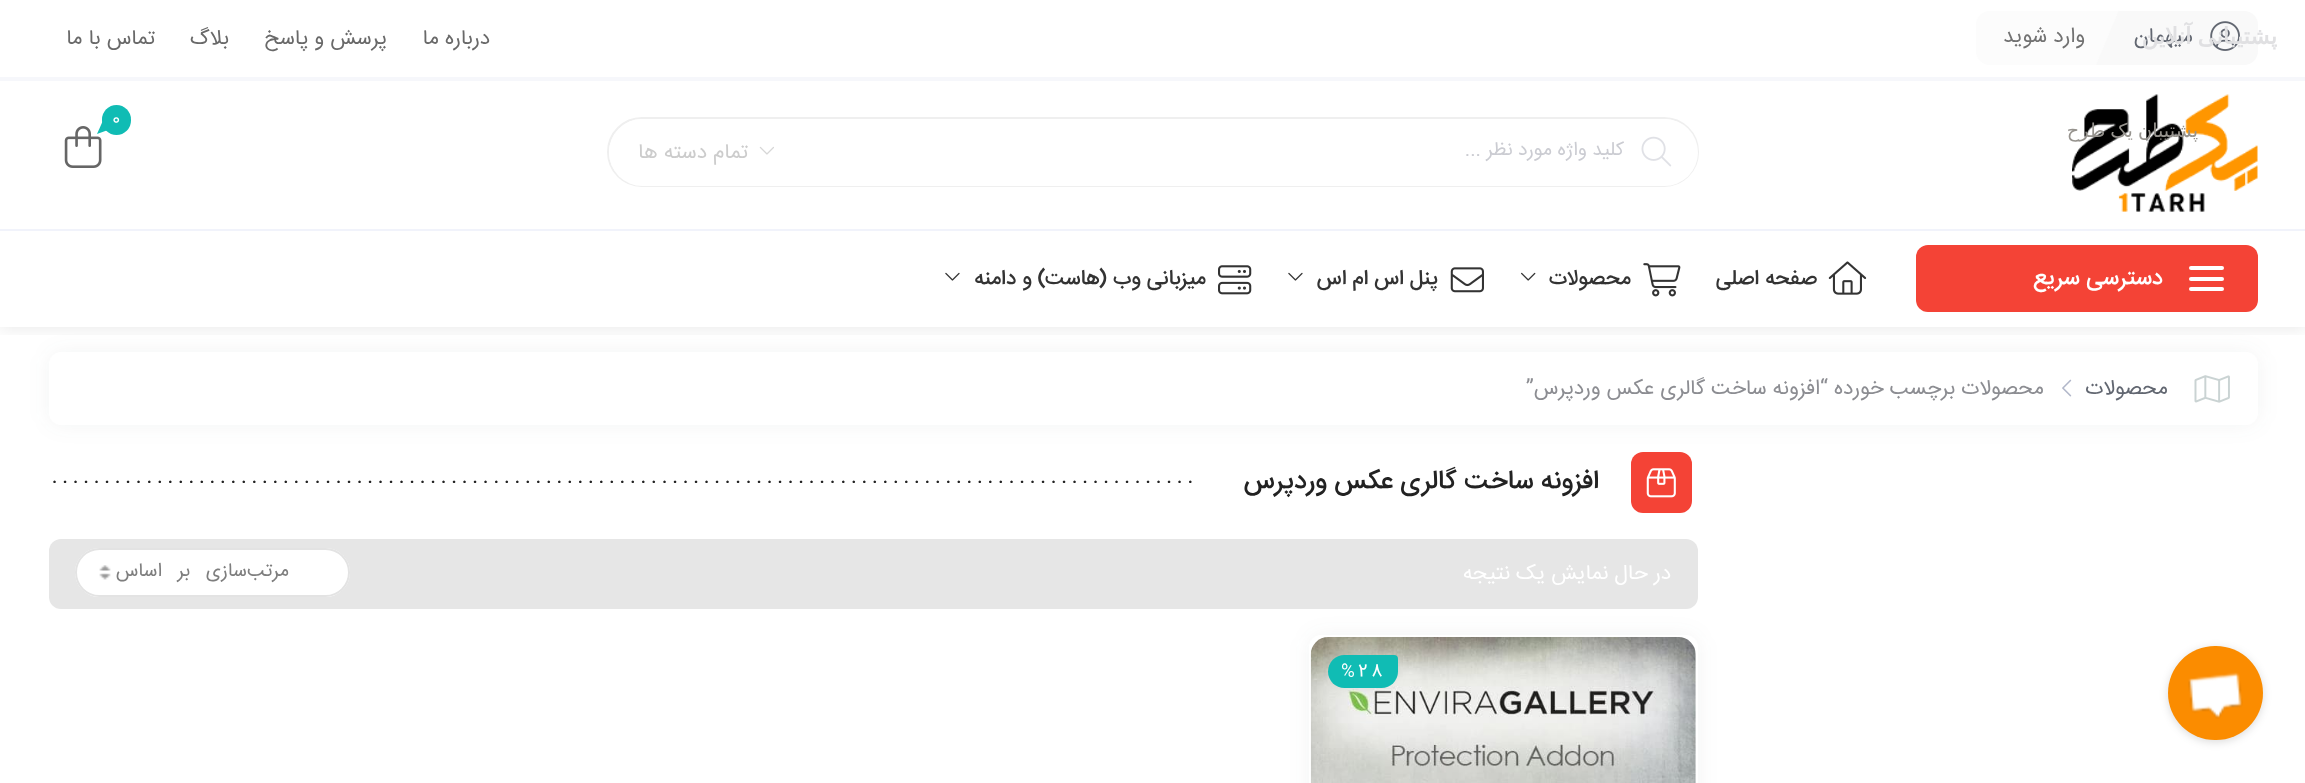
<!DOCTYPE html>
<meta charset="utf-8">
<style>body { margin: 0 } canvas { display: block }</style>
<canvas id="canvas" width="2305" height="783"></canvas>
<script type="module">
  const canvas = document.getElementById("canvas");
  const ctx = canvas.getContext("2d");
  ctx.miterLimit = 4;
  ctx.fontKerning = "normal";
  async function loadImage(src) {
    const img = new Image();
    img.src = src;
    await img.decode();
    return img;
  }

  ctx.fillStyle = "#ffffff";
  ctx.fillRect(0, 0, 2305, 783);
  ctx.fillStyle = "rgba(55, 73, 72, 0.06)";
  ctx.filter = "blur(10.5px)";
  ctx.beginPath();
  ctx.roundRect(49, 352, 2209, 73, 12);
  ctx.fill();
  ctx.filter = "none";
  ctx.fillStyle = "#ffffff";
  ctx.beginPath();
  ctx.roundRect(49, 352, 2209, 73, 12);
  ctx.fill();
  ctx.save();
  ctx.beginPath();
  ctx.rect(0, 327, 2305, 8);
  ctx.clip();
  ctx.fillStyle = "rgba(0, 0, 0, 0.1)";
  ctx.filter = "blur(9.5px)";
  ctx.beginPath();
  ctx.rect(0, 0, 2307, 327);
  ctx.fill();
  ctx.filter = "none";
  ctx.restore();
  ctx.fillStyle = "#f9f9f9";
  ctx.beginPath();
  ctx.roundRect(2119, 11, 139, 54, [0, 14, 14, 0]);
  ctx.fill();
  ctx.drawImage(await loadImage("img1.png"), 2210, 21, 30, 30);
  ctx.direction = "rtl";
  ctx.font = "21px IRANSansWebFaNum";
  ctx.fillStyle = "#626771";
  ctx.fillText("میهمان", 2193, 42);
  ctx.wordSpacing = "-1px";
  ctx.font = "bold 22.75px DejaVu Sans";
  ctx.fillStyle = "#e0e0e2";
  ctx.fillText("پشتیبانی آنلاین", 2277, 44);
  ctx.drawImage(await loadImage("img2.png"), 2072, 94, 186, 118);
  ctx.font = "19.25px DejaVu Sans";
  ctx.fillStyle = "#96938e";
  ctx.fillText("پشتیبان یک طرح", 2198, 137);
  ctx.fillStyle = "#f6f7fb";
  ctx.fillRect(0, 77, 2305, 4);
  ctx.fillStyle = "#fcfcfc";
  ctx.beginPath();
  ctx.roundRect(1976, 11, 143, 54, [14, 0, 0, 14]);
  ctx.fill();
  ctx.fillStyle = "#f9f9f9";
  ctx.beginPath();
  ctx.moveTo(2119, 65);
  ctx.lineTo(2096, 65);
  ctx.lineTo(2119, 10);
  ctx.closePath();
  ctx.fill();
  ctx.wordSpacing = "0px";
  ctx.font = "21px IRANSansWebFaNum";
  ctx.fillStyle = "#727272";
  ctx.fillText("وارد شوید", 2085, 42);
  ctx.fillStyle = "#696969";
  ctx.fillText("درباره ما", 490, 44);
  ctx.fillText("پرسش و پاسخ", 387, 44);
  ctx.fillText("بلاگ", 229, 44);
  ctx.fillText("تماس با ما", 155, 44);
  ctx.fillStyle = "#f1f3fb";
  ctx.fillRect(0, 229, 2305, 2);
  ctx.fillStyle = "#10bcb4";
  ctx.beginPath();
  ctx.roundRect(102, 105, 29, 30, 14.5);
  ctx.fill();
  ctx.direction = "ltr";
  ctx.font = "17.5px IRANSansWebFaNum";
  ctx.fillStyle = "#ffffff";
  ctx.fillText("0", 112, 124);
  ctx.drawImage(await loadImage("img3.png"), 64, 126, 38, 42);
  ctx.fillStyle = "#10bcb4";
  ctx.beginPath();
  ctx.moveTo(113.5, 128);
  ctx.lineTo(97, 134);
  ctx.lineTo(103, 120.5);
  ctx.closePath();
  ctx.fill();
  ctx.beginPath();
  ctx.roundRect(608, 118, 1090, 68, 34);
  ctx.strokeStyle = "#efefef";
  ctx.lineWidth = 2;
  ctx.stroke();
  ctx.fillStyle = "#ffffff";
  ctx.beginPath();
  ctx.roundRect(609, 119, 1089, 67, 33.5);
  ctx.fill();
  ctx.drawImage(await loadImage("img4.png"), 1641, 136, 31, 31);
  ctx.direction = "rtl";
  ctx.font = "19.25px IRANSansWebFaNum";
  ctx.fillStyle = "#cbccd2";
  ctx.fillText("کلید واژه مورد نظر ...", 1624, 155);
  ctx.drawImage(await loadImage("img5.png"), 759, 146, 15, 9);
  ctx.font = "21px IRANSansWebFaNum";
  ctx.fillStyle = "#cccccc";
  ctx.fillText("تمام دسته ها", 748, 158);
  ctx.fillStyle = "#f44336";
  ctx.beginPath();
  ctx.roundRect(1916, 245, 342, 67, 12);
  ctx.fill();
  ctx.fillStyle = "#ffffff";
  ctx.beginPath();
  ctx.roundRect(2189, 266, 35, 4, 2);
  ctx.fill();
  ctx.beginPath();
  ctx.roundRect(2189, 277, 35, 4, 2);
  ctx.fill();
  ctx.beginPath();
  ctx.roundRect(2189, 287, 35, 4, 2);
  ctx.fill();
  ctx.font = "500 22.75px IRANSansWebFaNum";
  ctx.fillText("دسترسی سریع", 2163, 284);
  ctx.drawImage(await loadImage("img6.png"), 1828, 261, 39, 34);
  ctx.font = "500 21px IRANSansWebFaNum";
  ctx.fillStyle = "#333333";
  ctx.fillText("صفحه اصلی", 1817, 284);
  ctx.drawImage(await loadImage("img7.png"), 1643, 263, 38, 34);
  ctx.fillText("محصولات", 1631, 284);
  ctx.drawImage(await loadImage("img8.png"), 1521, 272, 15, 9);
  ctx.drawImage(await loadImage("img9.png"), 1450, 267, 34, 26);
  ctx.fillText("پنل اس ام اس", 1438, 284);
  ctx.drawImage(await loadImage("img10.png"), 1288, 272, 15, 9);
  ctx.drawImage(await loadImage("img11.png"), 1218, 265, 34, 30);
  ctx.fillText("میزبانی وب (هاست) و دامنه", 1206, 284);
  ctx.drawImage(await loadImage("img10.png"), 945, 272, 15, 9);
  ctx.drawImage(await loadImage("img12.png"), 2194, 375, 36, 28);
  ctx.font = "21px IRANSansWebFaNum";
  ctx.fillStyle = "#626771";
  ctx.fillText("محصولات", 2168, 394);
  ctx.drawImage(await loadImage("img13.png"), 2062, 379, 10, 18);
  ctx.fillStyle = "#8c8d92";
  ctx.fillText("محصولات برچسب خورده “افزونه ساخت گالری عکس وردپرس”", 2044, 394);
  ctx.fillStyle = "#f44336";
  ctx.beginPath();
  ctx.roundRect(1631, 452, 61, 61, 12);
  ctx.fill();
  ctx.drawImage(await loadImage("img14.png"), 1646, 468, 30, 30);
  ctx.font = "500 26.25px IRANSansWebFaNum";
  ctx.fillStyle = "#222222";
  ctx.fillText("افزونه ساخت گالری عکس وردپرس", 1599, 488);
  ctx.letterSpacing = "5.25px";
  ctx.direction = "ltr";
  ctx.font = "500 17.5px IRANSansWebFaNum";
  ctx.fillText(".............................................................................................................", 52, 482);
  ctx.fillStyle = "#e6e6e6";
  ctx.beginPath();
  ctx.roundRect(49, 539, 1649, 70, 12);
  ctx.fill();
  ctx.letterSpacing = "0px";
  ctx.direction = "rtl";
  ctx.font = "21px IRANSansWebFaNum";
  ctx.fillStyle = "#ffffff";
  ctx.fillText("در حال نمایش یک نتیجه", 1671, 579);
  ctx.beginPath();
  ctx.roundRect(75, 548, 275, 49, 24.5);
  ctx.fill();
  ctx.drawImage(await loadImage("img15.png"), 99, 565, 12, 15);
  ctx.beginPath();
  ctx.roundRect(76, 549, 273, 47, 23.5);
  ctx.strokeStyle = "#e3e3e3";
  ctx.stroke();
  ctx.wordSpacing = "10px";
  ctx.font = "19.25px IRANSansWebFaNum";
  ctx.fillStyle = "#7e7e7e";
  ctx.fillText("مرتب‌سازی بر اساس", 289, 576);
  ctx.fillStyle = "rgba(55, 73, 72, 0.06)";
  ctx.filter = "blur(10.5px)";
  ctx.beginPath();
  ctx.roundRect(1309, 635, 389, 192, 12);
  ctx.fill();
  ctx.filter = "none";
  ctx.fillStyle = "#ffffff";
  ctx.beginPath();
  ctx.roundRect(1309, 635, 389, 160, 12);
  ctx.fill();
  ctx.drawImage(await loadImage("img16.png"), 1310, 637, 386, 146);
  ctx.fillStyle = "rgba(0, 0, 0, 0.2)";
  ctx.filter = "blur(9px)";
  ctx.beginPath();
  ctx.roundRect(1337, 663, 53, 16, 8);
  ctx.fill();
  ctx.filter = "none";
  ctx.fillStyle = "#10bcb4";
  ctx.beginPath();
  ctx.roundRect(1328, 655, 70, 33, [16.5, 4, 16.5, 16.5]);
  ctx.fill();
  ctx.letterSpacing = "3.5px";
  ctx.wordSpacing = "0px";
  ctx.direction = "ltr";
  ctx.font = "17.5px IRANSansWebFaNum";
  ctx.fillStyle = "#ffffff";
  ctx.fillText("%28", 1341, 676);
  ctx.fillStyle = "rgba(0, 0, 0, 0.14)";
  ctx.filter = "blur(4.5px)";
  ctx.beginPath();
  ctx.roundRect(2168, 648, 95, 94, 47);
  ctx.fill();
  ctx.filter = "none";
  ctx.fillStyle = "#fb8c00";
  ctx.beginPath();
  ctx.roundRect(2168, 646, 95, 94, 47);
  ctx.fill();
  ctx.drawImage(await loadImage("img17.png"), 2188, 672, 55, 47);
</script>
